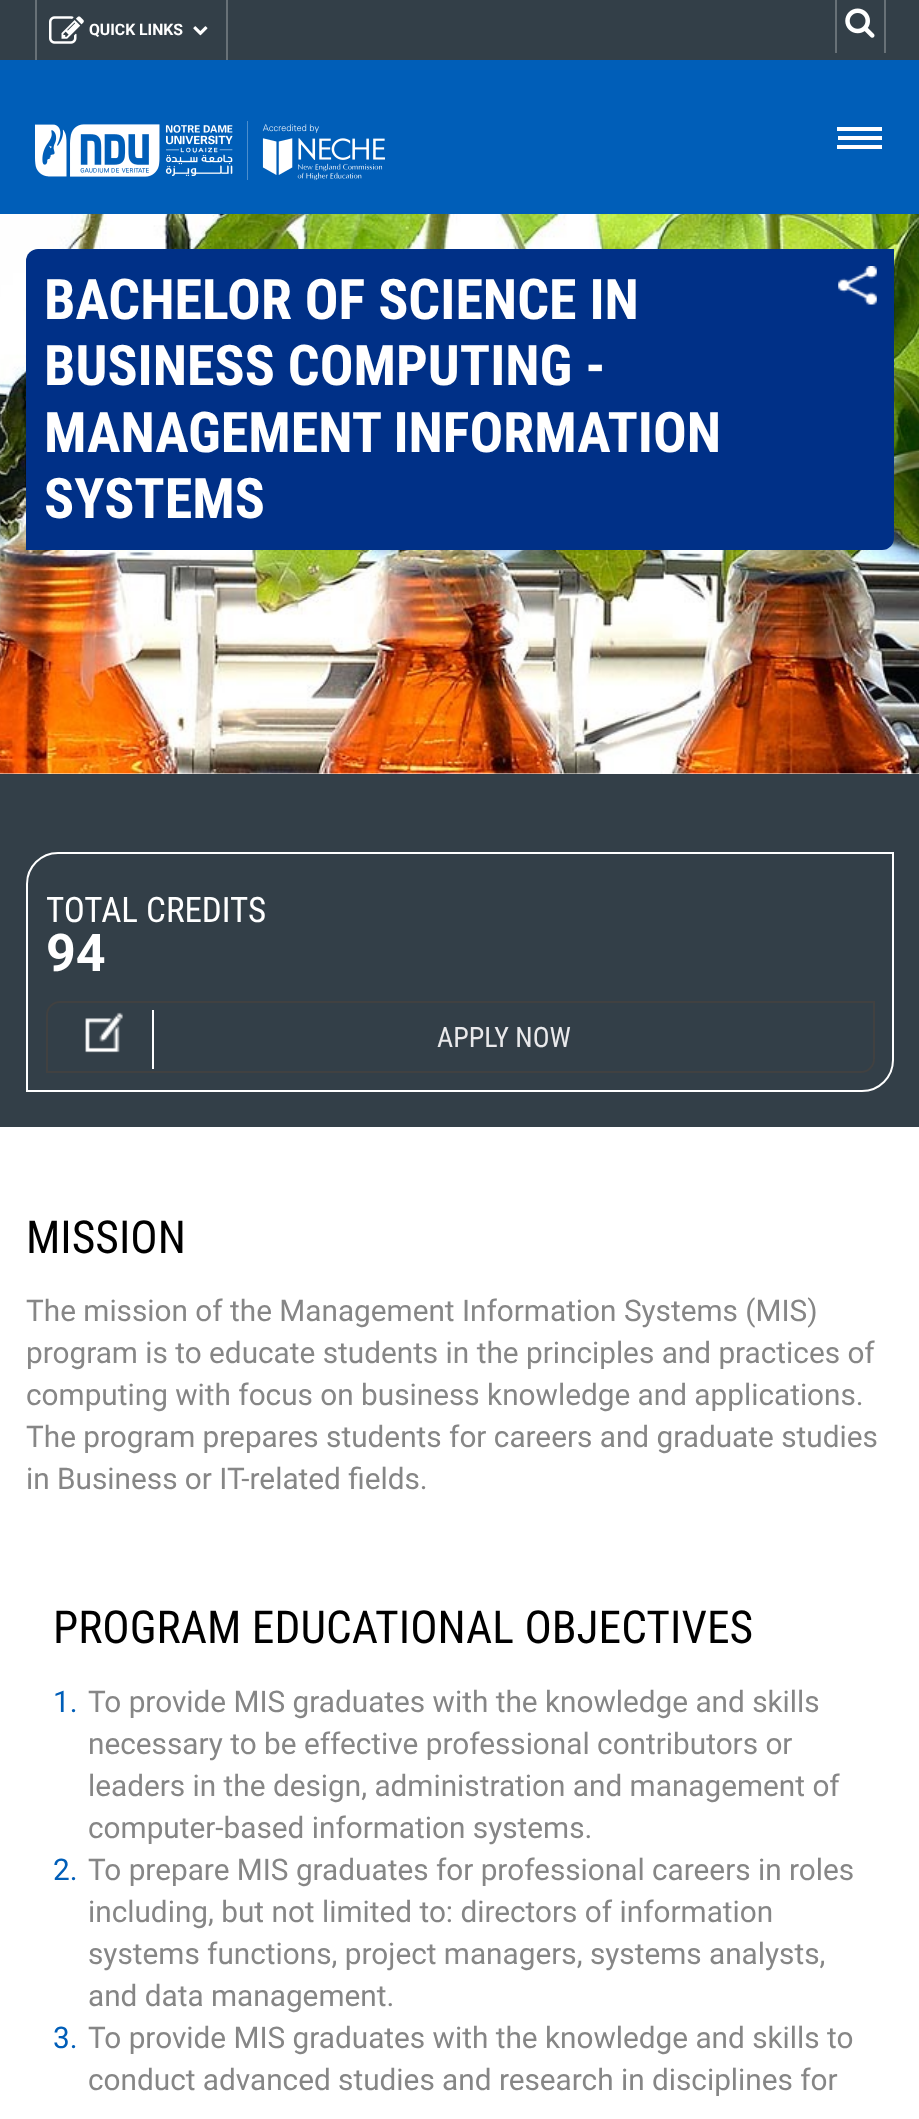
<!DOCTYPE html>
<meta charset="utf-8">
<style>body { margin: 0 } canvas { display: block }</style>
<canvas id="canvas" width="919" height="2119"></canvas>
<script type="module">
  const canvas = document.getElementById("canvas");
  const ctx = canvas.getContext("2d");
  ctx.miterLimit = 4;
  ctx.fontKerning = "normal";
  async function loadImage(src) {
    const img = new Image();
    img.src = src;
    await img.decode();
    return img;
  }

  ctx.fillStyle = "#ffffff";
  ctx.fillRect(0, 0, 919, 2119);
  ctx.fillStyle = "#005eb8";
  ctx.fillRect(0, 60, 919, 154);
  ctx.fillStyle = "#333f48";
  ctx.fillRect(0, 0, 919, 60);
  ctx.fillStyle = "#687177";
  ctx.fillRect(226, 0, 2, 60);
  ctx.fillRect(35, 0, 2, 60);
  ctx.drawImage(await loadImage("img1.png"), 49, 16, 35, 28);
  ctx.font = "bold 15.75px Roboto";
  ctx.fillStyle = "#ffffff";
  ctx.fillText("QUICK LINKS", 89, 35);
  ctx.drawImage(await loadImage("img2.png"), 193, 26, 15, 10);
  ctx.fillStyle = "#687177";
  ctx.fillRect(884, 0, 2, 53);
  ctx.fillRect(835, 0, 2, 53);
  ctx.drawImage(await loadImage("img3.png"), 845, 8, 30, 30);
  ctx.drawImage(await loadImage("img4.png"), 35, 121, 350, 60);
  ctx.fillStyle = "#ffffff";
  ctx.fillRect(837, 127, 45, 4);
  ctx.fillRect(838, 136, 44, 4);
  ctx.fillRect(837, 145, 45, 4);
  ctx.drawImage(await loadImage("img5.png"), 0, 214, 919, 560);
  ctx.fillStyle = "#003087";
  ctx.beginPath();
  ctx.roundRect(26, 249, 868, 301, [12, 0, 12, 0]);
  ctx.fill();
  ctx.font = "bold 56px Roboto Condensed";
  ctx.fillStyle = "#ffffff";
  ctx.fillText("BACHELOR OF SCIENCE IN", 44, 319);
  ctx.fillText("BUSINESS COMPUTING -", 44, 385);
  ctx.fillText("MANAGEMENT INFORMATION", 44, 452);
  ctx.fillText("SYSTEMS", 44, 518);
  ctx.drawImage(await loadImage("img6.png"), 838, 266, 39, 39);
  ctx.fillStyle = "#333f48";
  ctx.fillRect(0, 774, 919, 353);
  ctx.beginPath();
  ctx.roundRect(27, 853, 866, 238, [31, 0, 31, 0]);
  ctx.strokeStyle = "#ffffff";
  ctx.lineWidth = 2;
  ctx.stroke();
  ctx.font = "35px Roboto Condensed";
  ctx.fillStyle = "#ffffff";
  ctx.fillText("TOTAL CREDITS", 46, 922);
  ctx.font = "bold 52px Roboto";
  ctx.fillText("94", 46, 971);
  ctx.beginPath();
  ctx.roundRect(47, 1002, 827, 70, [13, 0, 13, 0]);
  ctx.strokeStyle = "#414141";
  ctx.stroke();
  ctx.fillRect(152, 1010, 2, 59);
  ctx.drawImage(await loadImage("img7.png"), 85, 1012, 38, 41);
  ctx.font = "28px Roboto Condensed";
  ctx.fillStyle = "#e9e9eb";
  ctx.fillText("APPLY NOW", 437, 1047);
  ctx.font = "45.5px Roboto Condensed";
  ctx.fillStyle = "#000000";
  ctx.fillText("MISSION", 26, 1253);
  ctx.font = "29.75px Roboto";
  ctx.fillStyle = "#868686";
  ctx.fillText("The mission of the Management Information Systems (MIS)", 26, 1321);
  ctx.fillText("program is to educate students in the principles and practices of", 26, 1363);
  ctx.fillText("computing with focus on business knowledge and applications.", 26, 1405);
  ctx.fillText("The program prepares students for careers and graduate studies", 26, 1447);
  ctx.fillText("in Business or IT-related fields.", 26, 1489);
  ctx.font = "45.5px Roboto Condensed";
  ctx.fillStyle = "#000000";
  ctx.fillText("PROGRAM EDUCATIONAL OBJECTIVES", 53, 1643);
  ctx.font = "29.75px Roboto";
  ctx.fillStyle = "#005eb8";
  ctx.fillText("1.", 53, 1712);
  ctx.fillStyle = "#868686";
  ctx.fillText("To provide MIS graduates with the knowledge and skills", 88, 1712);
  ctx.fillText("necessary to be effective professional contributors or", 88, 1754);
  ctx.fillText("leaders in the design, administration and management of", 88, 1796);
  ctx.fillText("computer-based information systems.", 88, 1838);
  ctx.fillStyle = "#005eb8";
  ctx.fillText("2.", 53, 1880);
  ctx.fillStyle = "#868686";
  ctx.fillText("To prepare MIS graduates for professional careers in roles", 88, 1880);
  ctx.fillText("including, but not limited to: directors of information", 88, 1922);
  ctx.fillText("systems functions, project managers, systems analysts,", 88, 1964);
  ctx.fillText("and data management.", 88, 2006);
  ctx.fillStyle = "#005eb8";
  ctx.fillText("3.", 53, 2048);
  ctx.fillStyle = "#868686";
  ctx.fillText("To provide MIS graduates with the knowledge and skills to", 88, 2048);
  ctx.fillText("conduct advanced studies and research in disciplines for", 88, 2090);
</script>
